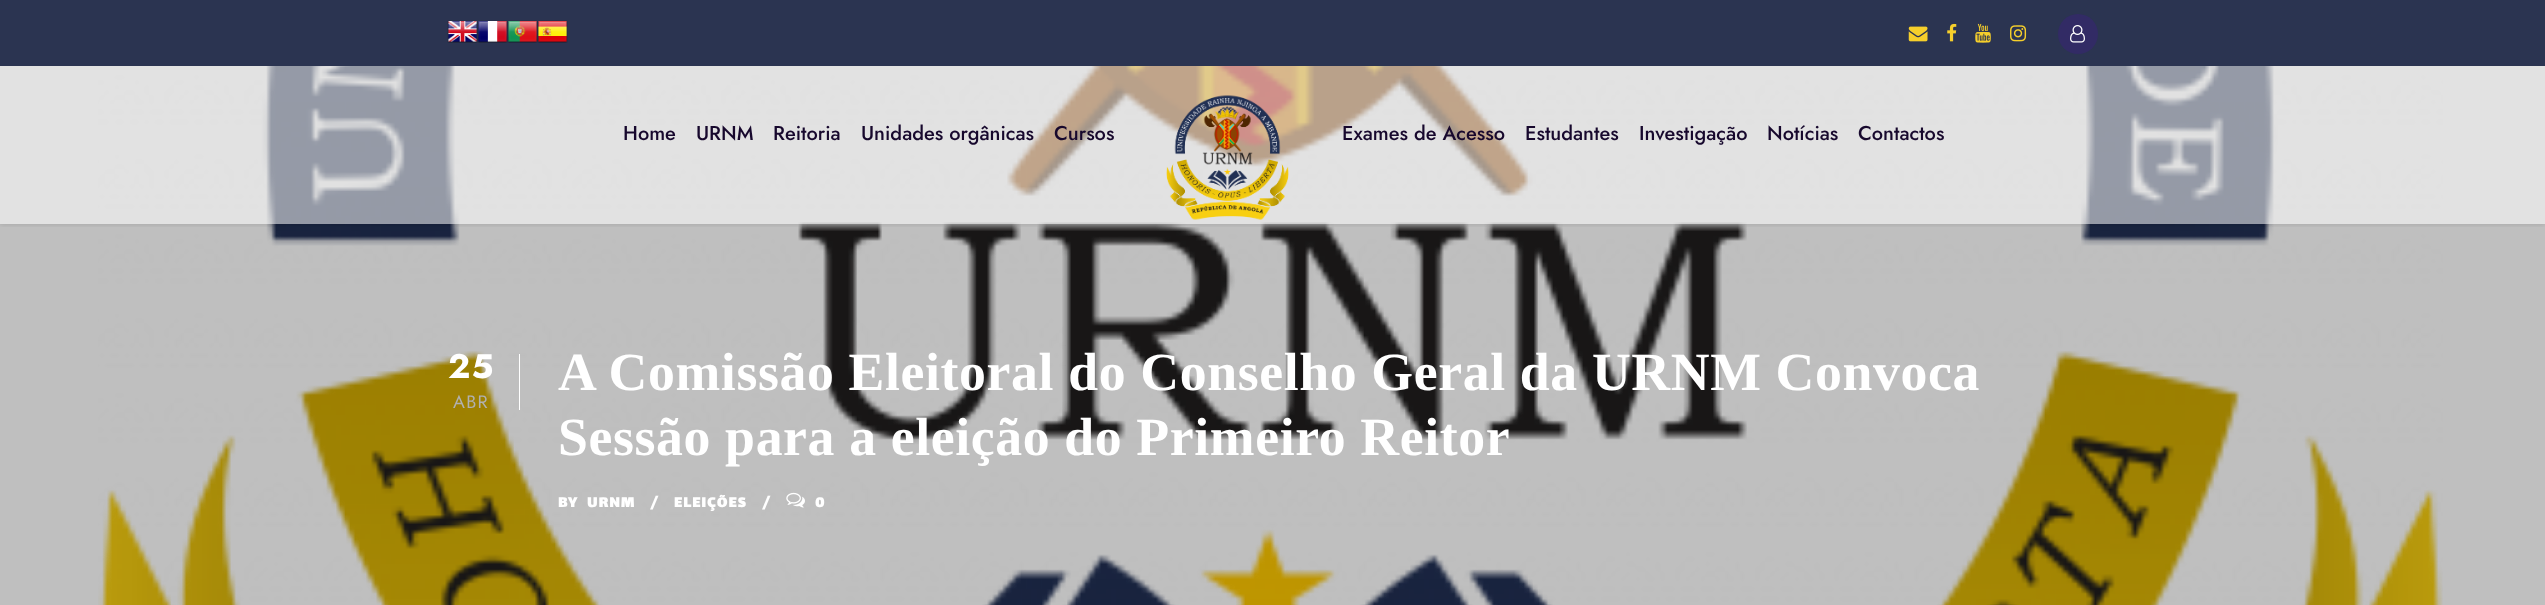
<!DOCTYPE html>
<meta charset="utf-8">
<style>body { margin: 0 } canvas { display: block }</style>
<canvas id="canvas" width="2545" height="605"></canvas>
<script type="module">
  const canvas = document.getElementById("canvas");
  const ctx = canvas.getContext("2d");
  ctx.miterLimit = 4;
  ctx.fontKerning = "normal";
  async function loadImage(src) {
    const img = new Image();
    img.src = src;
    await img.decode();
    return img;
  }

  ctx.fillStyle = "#bfbfbf";
  ctx.fillRect(0, 0, 2545, 605);
  ctx.fillStyle = "#2b3451";
  ctx.fillRect(0, 0, 2545, 66);
  ctx.drawImage(await loadImage("img1.png"), 447, 20, 31, 23);
  ctx.drawImage(await loadImage("img2.png"), 477, 20, 31, 23);
  ctx.drawImage(await loadImage("img3.png"), 507, 20, 31, 23);
  ctx.drawImage(await loadImage("img4.png"), 537, 20, 31, 23);
  ctx.drawImage(await loadImage("img5.png"), 1908, 26, 20, 16);
  ctx.drawImage(await loadImage("img6.png"), 1947, 23, 10, 19);
  ctx.drawImage(await loadImage("img7.png"), 1975, 23, 16, 20);
  ctx.drawImage(await loadImage("img8.png"), 2010, 25, 17, 17);
  ctx.fillStyle = "#322b65";
  ctx.beginPath();
  ctx.arc(2078, 34, 20, 0, Math.PI * 2);
  ctx.fill();
  ctx.drawImage(await loadImage("img9.png"), 2070, 25, 15, 18);
  ctx.drawImage(await loadImage("img11.png"), 98, 66, 2345, 539);
  ctx.save();
  ctx.beginPath();
  ctx.rect(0, 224, 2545, 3);
  ctx.clip();
  ctx.fillStyle = "rgba(0, 0, 0, 0.1)";
  ctx.filter = "blur(2.5px)";
  ctx.beginPath();
  ctx.rect(0, 68, 2545, 157);
  ctx.fill();
  ctx.filter = "none";
  ctx.restore();
  ctx.fillStyle = "rgba(255, 255, 255, 0.54)";
  ctx.fillRect(0, 66, 2545, 158);
  ctx.font = "500 20px Jost";
  ctx.fillStyle = "#17082d";
  ctx.fillText("Home", 623, 140);
  ctx.fillText("URNM", 696, 140);
  ctx.fillText("Reitoria", 773, 140);
  ctx.fillText("Unidades orgânicas", 861, 140);
  ctx.fillText("Cursos", 1054, 140);
  ctx.drawImage(await loadImage("img10.png"), 1166, 95, 123, 125);
  ctx.fillText("Exames de Acesso", 1342, 140);
  ctx.fillText("Estudantes", 1525, 140);
  ctx.fillText("Investigação", 1639, 140);
  ctx.fillText("Notícias", 1767, 140);
  ctx.fillText("Contactos", 1858, 140);
  ctx.fillStyle = "#ffffff";
  ctx.fillRect(519, 354, 1, 56);
  ctx.letterSpacing = "1.25px";
  ctx.font = "bold 34px Jost";
  ctx.fillText("25", 448, 378);
  ctx.font = "18px Jost";
  ctx.fillStyle = "#b1b1b1";
  ctx.fillText("ABR", 453, 408);
  ctx.letterSpacing = "0.62px";
  ctx.font = "bold 53.75px Liberation Serif";
  ctx.fillStyle = "#ffffff";
  ctx.fillText("A Comissão Eleitoral do Conselho Geral da URNM Convoca", 558, 390);
  ctx.fillText("Sessão para a eleição do Primeiro Reitor", 558, 455);
  ctx.letterSpacing = "1.25px";
  ctx.font = "bold 16.25px Lalezar";
  ctx.fillText("BY", 558, 507);
  ctx.fillText("URNM", 587, 507);
  ctx.fillText("/", 650, 507);
  ctx.fillText("ELEIÇÕES", 674, 507);
  ctx.fillText("/", 762, 507);
  ctx.drawImage(await loadImage("img12.png"), 786, 492, 19, 16);
  ctx.fillText("0", 815, 507);
</script>
